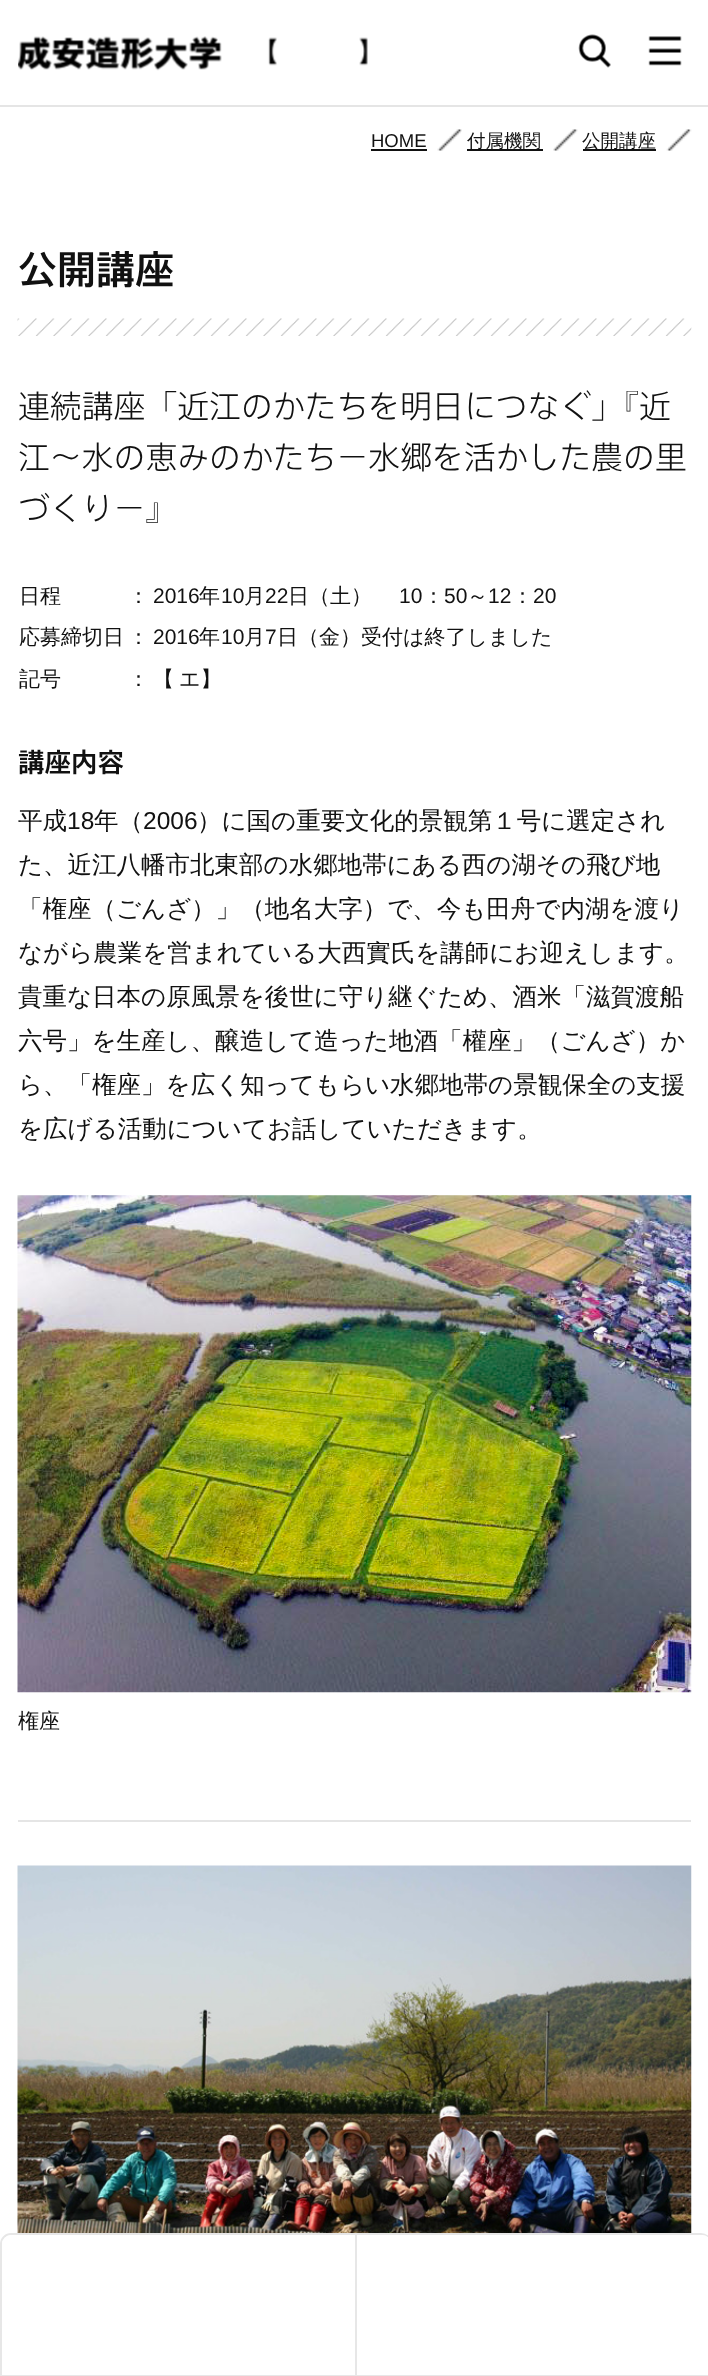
<!DOCTYPE html>
<meta charset="utf-8">
<style>body { margin: 0 } canvas { display: block }</style>
<canvas id="canvas" width="708" height="2376"></canvas>
<script type="module">
  const canvas = document.getElementById("canvas");
  const ctx = canvas.getContext("2d");
  ctx.miterLimit = 4;
  ctx.fontKerning = "normal";
  async function loadImage(src) {
    const img = new Image();
    img.src = src;
    await img.decode();
    return img;
  }

  ctx.fillStyle = "#ffffff";
  ctx.fillRect(0, 0, 708, 2376);
  ctx.fillStyle = "#e5e5e5";
  ctx.fillRect(0, 105, 708, 2);
  ctx.drawImage(await loadImage("img1.png"), 18, 36, 350, 35);
  ctx.drawImage(await loadImage("img2.png"), 578, 34, 33, 34);
  ctx.drawImage(await loadImage("img3.png"), 648, 36, 34, 30);
  ctx.font = "18.5px Liberation Sans";
  ctx.fillStyle = "#111111";
  ctx.fillText("HOME", 371, 147);
  ctx.fillRect(371, 149, 56, 2);
  ctx.drawImage(await loadImage("img4.png"), 437, 129, 25, 22);
  ctx.fillRect(467, 149, 76, 2);
  ctx.font = "500 18.5px WenQuanYi Zen Hei";
  ctx.fillText("付属機関", 467, 147);
  ctx.drawImage(await loadImage("img5.png"), 553, 129, 25, 22);
  ctx.fillRect(583, 149, 73, 2);
  ctx.fillText("公開講座", 582, 147);
  ctx.drawImage(await loadImage("img6.png"), 666, 129, 26, 22);
  ctx.drawImage(await loadImage("img7.png"), 17, 318, 675, 18);
  ctx.font = "500 39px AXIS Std";
  ctx.fillText("公開講座", 18, 284);
  ctx.font = "300 31.85px AXIS Std";
  ctx.fillText("連続講座「近江のかたちを明日につなぐ」『近", 18, 418);
  ctx.fillText("江～水の恵みのかたち－水郷を活かした農の里", 18, 469);
  ctx.fillText("づくり－』", 18, 520);
  ctx.font = "500 21px WenQuanYi Zen Hei";
  ctx.fillText("日程", 19, 603);
  ctx.fillText("：", 128, 603);
  ctx.font = "21px Liberation Sans";
  ctx.fillText("2016", 153, 603);
  ctx.font = "500 21px WenQuanYi Zen Hei";
  ctx.fillText("年", 199, 603);
  ctx.font = "21px Liberation Sans";
  ctx.fillText("10", 221, 603);
  ctx.font = "500 21px WenQuanYi Zen Hei";
  ctx.fillText("月", 244, 603);
  ctx.font = "21px Liberation Sans";
  ctx.fillText("22", 265, 603);
  ctx.font = "500 21px WenQuanYi Zen Hei";
  ctx.fillText("日（土）", 288, 603);
  ctx.font = "21px Liberation Sans";
  ctx.fillText("10", 399, 603);
  ctx.font = "500 21px WenQuanYi Zen Hei";
  ctx.fillText("：", 423, 603);
  ctx.font = "21px Liberation Sans";
  ctx.fillText("50", 444, 603);
  ctx.font = "500 21px WenQuanYi Zen Hei";
  ctx.fillText("～", 467, 603);
  ctx.font = "21px Liberation Sans";
  ctx.fillText("12", 488, 603);
  ctx.font = "500 21px WenQuanYi Zen Hei";
  ctx.fillText("：", 512, 603);
  ctx.font = "21px Liberation Sans";
  ctx.fillText("20", 533, 603);
  ctx.font = "500 21px WenQuanYi Zen Hei";
  ctx.fillText("応募締切日", 19, 644);
  ctx.fillText("：", 128, 644);
  ctx.font = "21px Liberation Sans";
  ctx.fillText("2016", 153, 644);
  ctx.font = "500 21px WenQuanYi Zen Hei";
  ctx.fillText("年", 199, 644);
  ctx.font = "21px Liberation Sans";
  ctx.fillText("10", 221, 644);
  ctx.font = "500 21px WenQuanYi Zen Hei";
  ctx.fillText("月", 244, 644);
  ctx.font = "21px Liberation Sans";
  ctx.fillText("7", 265, 644);
  ctx.font = "500 21px WenQuanYi Zen Hei";
  ctx.fillText("日（金）受付は終了しました", 277, 644);
  ctx.fillText("記号", 19, 686);
  ctx.fillText("：", 128, 686);
  ctx.fillText("【", 153, 686);
  ctx.fillText("エ】", 179, 686);
  ctx.font = "500 26.5px AXIS Std";
  ctx.fillText("講座内容", 18, 772);
  ctx.font = "500 24.5px WenQuanYi Zen Hei";
  ctx.fillText("平成", 18, 829);
  ctx.font = "24.5px Liberation Sans";
  ctx.fillText("18", 67, 829);
  ctx.font = "500 24.5px WenQuanYi Zen Hei";
  ctx.fillText("年（", 94, 829);
  ctx.font = "24.5px Liberation Sans";
  ctx.fillText("2006", 143, 829);
  ctx.font = "500 24.5px WenQuanYi Zen Hei";
  ctx.fillText("）に国の重要文化的景観第１号に選定され", 197, 829);
  ctx.fillText("た、近江八幡市北東部の水郷地帯にある西の湖その飛び地", 18, 873);
  ctx.fillText("「権座（ごんざ）」（地名大字）で、今も田舟で内湖を渡り", 18, 917);
  ctx.fillText("ながら農業を営まれている大西實氏を講師にお迎えします。", 18, 961);
  ctx.fillText("貴重な日本の原風景を後世に守り継ぐため、酒米「滋賀渡船", 18, 1005);
  ctx.fillText("六号」を生産し、醸造して造った地酒「權座」（ごんざ）か", 18, 1049);
  ctx.fillText("ら、「権座」を広く知ってもらい水郷地帯の景観保全の支援", 18, 1093);
  ctx.fillText("を広げる活動についてお話していただきます。", 18, 1137);
  ctx.fillStyle = "#e5e5e5";
  ctx.fillRect(18, 1820, 673, 2);
  ctx.drawImage(await loadImage("img8.png"), 17, 1195, 675, 498);
  ctx.font = "500 21px WenQuanYi Zen Hei";
  ctx.fillStyle = "#111111";
  ctx.fillText("権座", 18, 1728);
  ctx.drawImage(await loadImage("img9.png"), 17, 1865, 675, 368);
  ctx.beginPath();
  ctx.moveTo(11, 2234);
  ctx.lineTo(701, 2234);
  ctx.bezierCurveTo(706.5, 2234, 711, 2238.5, 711, 2244);
  ctx.lineTo(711, 2376);
  ctx.lineTo(1, 2376);
  ctx.lineTo(1, 2244);
  ctx.bezierCurveTo(1, 2238.5, 5.5, 2234, 11, 2234);
  ctx.closePath();
  ctx.strokeStyle = "#e7e7e7";
  ctx.lineWidth = 2;
  ctx.stroke();
  ctx.fillStyle = "#e7e7e7";
  ctx.fillRect(355, 2235, 2, 140);
  ctx.fillStyle = "#ffffff";
  ctx.beginPath();
  ctx.roundRect(2, 2235, 353, 140, [9, 0, 0, 0]);
  ctx.fill();
  ctx.beginPath();
  ctx.moveTo(357, 2235);
  ctx.lineTo(702, 2235);
  ctx.bezierCurveTo(707, 2235, 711, 2239, 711, 2244);
  ctx.lineTo(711, 2375);
  ctx.lineTo(357, 2375);
  ctx.closePath();
  ctx.fill();
</script>
